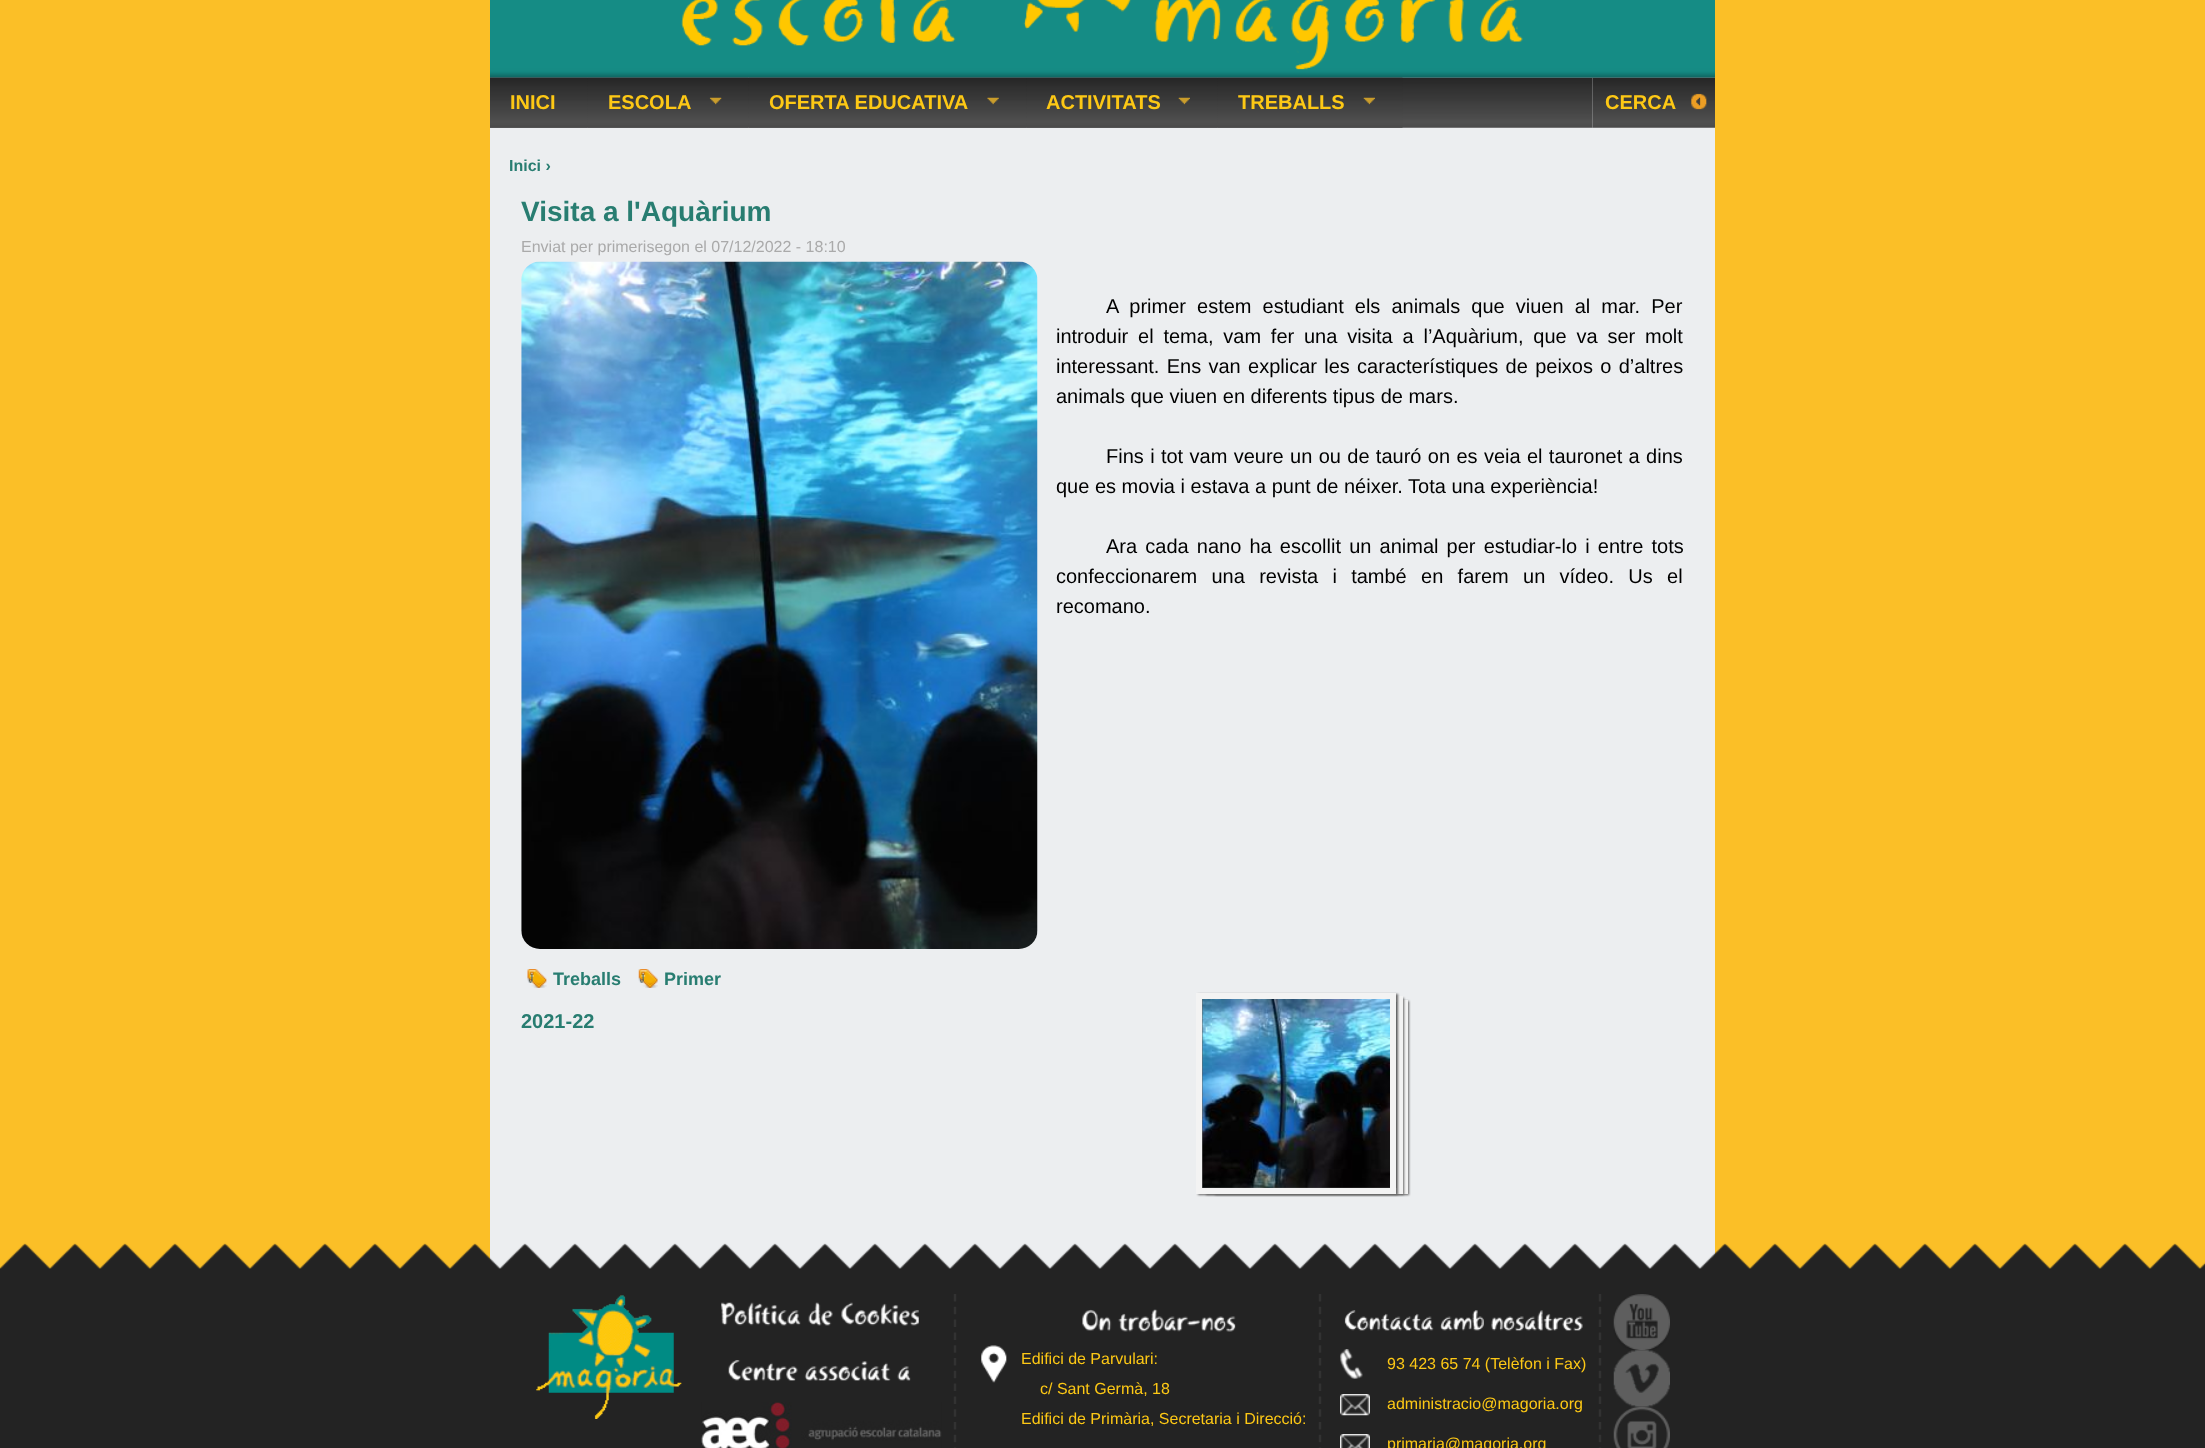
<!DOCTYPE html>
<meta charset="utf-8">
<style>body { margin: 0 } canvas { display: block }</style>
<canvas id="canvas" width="2205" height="1448"></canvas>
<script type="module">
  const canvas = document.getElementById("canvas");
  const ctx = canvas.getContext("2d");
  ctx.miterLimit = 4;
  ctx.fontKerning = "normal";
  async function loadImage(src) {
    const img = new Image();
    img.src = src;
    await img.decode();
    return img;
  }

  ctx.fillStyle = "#232323";
  ctx.fillRect(0, 0, 2205, 1448);
  ctx.fillStyle = "#fbbf27";
  ctx.fillRect(0, 0, 2205, 1269);
  ctx.fillStyle = "#eceef0";
  ctx.fillRect(490, 77, 1225, 1192);
  ctx.drawImage(await loadImage("img1.png"), 490, 0, 1225, 78);
  ctx.drawImage(await loadImage("img2.png"), 490, 77, 1103, 51);
  ctx.drawImage(await loadImage("img3.png"), 490, 77, 98, 51);
  ctx.font = "bold 20px Liberation Sans";
  ctx.fillStyle = "#fdc815";
  ctx.fillText("INICI", 510, 109);
  ctx.drawImage(await loadImage("img4.png"), 587, 77, 162, 51);
  ctx.fillText("ESCOLA", 608, 109);
  ctx.drawImage(await loadImage("img5.png"), 709, 97, 13, 8);
  ctx.drawImage(await loadImage("img6.png"), 749, 77, 278, 51);
  ctx.fillText("OFERTA EDUCATIVA", 769, 109);
  ctx.drawImage(await loadImage("img7.png"), 987, 97, 12, 8);
  ctx.drawImage(await loadImage("img8.png"), 1026, 77, 192, 51);
  ctx.fillText("ACTIVITATS", 1046, 109);
  ctx.drawImage(await loadImage("img9.png"), 1178, 97, 12, 8);
  ctx.drawImage(await loadImage("img10.png"), 1217, 77, 186, 51);
  ctx.fillText("TREBALLS", 1238, 109);
  ctx.drawImage(await loadImage("img9.png"), 1363, 97, 12, 8);
  ctx.drawImage(await loadImage("img11.png"), 1592, 77, 123, 51);
  ctx.fillText("CERCA", 1605, 109);
  ctx.drawImage(await loadImage("img12.png"), 1691, 93, 16, 17);
  ctx.font = "bold 16px Liberation Sans";
  ctx.fillStyle = "#287d71";
  ctx.fillText("Inici ›", 509, 171);
  ctx.font = "bold 28px Liberation Sans";
  ctx.fillText("Visita a l'Aquàrium", 521, 221);
  ctx.font = "16px Liberation Sans";
  ctx.fillStyle = "#aaaaaa";
  ctx.fillText("Enviat per primerisegon el 07/12/2022 - 18:10", 521, 252);
  ctx.drawImage(await loadImage("img13.png"), 521, 261, 517, 688);
  ctx.wordSpacing = "5.5px";
  ctx.font = "20px Liberation Sans";
  ctx.fillStyle = "#000000";
  ctx.fillText("A primer estem estudiant els animals que viuen al mar. Per", 1106, 313);
  ctx.wordSpacing = "4.25px";
  ctx.fillText("introduir el tema, vam fer una visita a l’Aquàrium, que va ser molt", 1056, 343);
  ctx.wordSpacing = "1.75px";
  ctx.fillText("interessant. Ens van explicar les característiques de peixos o d’altres", 1056, 373);
  ctx.wordSpacing = "0px";
  ctx.fillText("animals que viuen en diferents tipus de mars.", 1056, 403);
  ctx.wordSpacing = "0.8px";
  ctx.fillText("Fins i tot vam veure un ou de tauró on es veia el tauronet a dins", 1106, 463);
  ctx.wordSpacing = "0px";
  ctx.fillText("que es movia i estava a punt de néixer. Tota una experiència!", 1056, 493);
  ctx.wordSpacing = "2.6px";
  ctx.fillText("Ara cada nano ha escollit un animal per estudiar-lo i entre tots", 1106, 553);
  ctx.wordSpacing = "8.75px";
  ctx.fillText("confeccionarem una revista i també en farem un vídeo. Us el", 1056, 583);
  ctx.wordSpacing = "0px";
  ctx.fillText("recomano.", 1056, 613);
  ctx.drawImage(await loadImage("img14.png"), 527, 969, 20, 19);
  ctx.font = "bold 18px Liberation Sans";
  ctx.fillStyle = "#287d71";
  ctx.fillText("Treballs", 553, 985);
  ctx.drawImage(await loadImage("img15.png"), 638, 969, 20, 19);
  ctx.fillText("Primer", 664, 985);
  ctx.font = "bold 20px Liberation Sans";
  ctx.fillText("2021-22", 521, 1028);
  ctx.drawImage(await loadImage("img19.png"), 1202, 1006, 182, 182);
  ctx.drawImage(await loadImage("img20.png"), 1202, 1006, 182, 182);
  ctx.drawImage(await loadImage("img21.png"), 1202, 1006, 182, 182);
  ctx.drawImage(await loadImage("img22.png"), 1202, 1006, 182, 182);
  ctx.drawImage(await loadImage("img23.png"), 1202, 1006, 182, 182);
  ctx.drawImage(await loadImage("img24.png"), 1202, 1006, 182, 182);
  ctx.fillStyle = "#666666";
  ctx.filter = "blur(1px)";
  ctx.beginPath();
  ctx.rect(1215, 1001, 194, 194);
  ctx.fill();
  ctx.filter = "none";
  ctx.strokeStyle = "#f3f3f3";
  ctx.lineWidth = 6;
  ctx.strokeRect(1217, 1003, 188, 188);
  ctx.drawImage(await loadImage("img18.png"), 1220, 1006, 177, 182);
  ctx.filter = "blur(1px)";
  ctx.beginPath();
  ctx.rect(1206, 998, 198, 197);
  ctx.fill();
  ctx.filter = "none";
  ctx.strokeRect(1208, 999, 192, 192);
  ctx.drawImage(await loadImage("img17.png"), 1211, 1002, 186, 186);
  ctx.filter = "blur(1px)";
  ctx.beginPath();
  ctx.rect(1198, 994, 200, 201);
  ctx.fill();
  ctx.filter = "none";
  ctx.strokeRect(1199, 996, 194, 195);
  ctx.drawImage(await loadImage("img16.png"), 1202, 999, 188, 189);
  ctx.drawImage(await loadImage("img25.png"), 0, 1243, 2205, 26);
  ctx.drawImage(await loadImage("img26.png"), 536, 1295, 146, 124);
  ctx.beginPath();
  ctx.moveTo(955, 1294);
  ctx.lineTo(955, 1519);
  ctx.strokeStyle = "#323232";
  ctx.lineWidth = 2.5;
  ctx.setLineDash([7.5, 5.3]);
  ctx.stroke();
  ctx.drawImage(await loadImage("img27.png"), 721, 1302, 198, 24);
  ctx.drawImage(await loadImage("img28.png"), 728, 1360, 183, 21);
  ctx.drawImage(await loadImage("img29.png"), 701, 1402, 241, 46);
  ctx.beginPath();
  ctx.moveTo(1320, 1294);
  ctx.lineTo(1320, 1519);
  ctx.stroke();
  ctx.drawImage(await loadImage("img30.png"), 1082, 1309, 154, 23);
  ctx.drawImage(await loadImage("img31.png"), 981, 1345, 26, 38);
  ctx.font = "16px Liberation Sans";
  ctx.fillStyle = "#fdc815";
  ctx.fillText("Edifici de Parvulari:", 1021, 1364);
  ctx.fillText("c/ Sant Germà, 18", 1040, 1394);
  ctx.fillText("Edifici de Primària, Secretaria i Direcció:", 1021, 1424);
  ctx.beginPath();
  ctx.moveTo(1600, 1294);
  ctx.lineTo(1600, 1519);
  ctx.stroke();
  ctx.drawImage(await loadImage("img32.png"), 1344, 1310, 239, 21);
  ctx.drawImage(await loadImage("img33.png"), 1340, 1349, 23, 30);
  ctx.fillText("93 423 65 74 (Telèfon i Fax)", 1387, 1369);
  ctx.drawImage(await loadImage("img34.png"), 1340, 1394, 30, 22);
  ctx.fillText("administracio@magoria.org", 1387, 1409);
  ctx.drawImage(await loadImage("img35.png"), 1340, 1434, 30, 14);
  ctx.fillText("primaria@magoria.org", 1387, 1449);
  ctx.drawImage(await loadImage("img36.png"), 1613, 1294, 57, 57);
  ctx.drawImage(await loadImage("img37.png"), 1613, 1350, 57, 57);
  ctx.drawImage(await loadImage("img38.png"), 1613, 1406, 57, 42);
</script>
